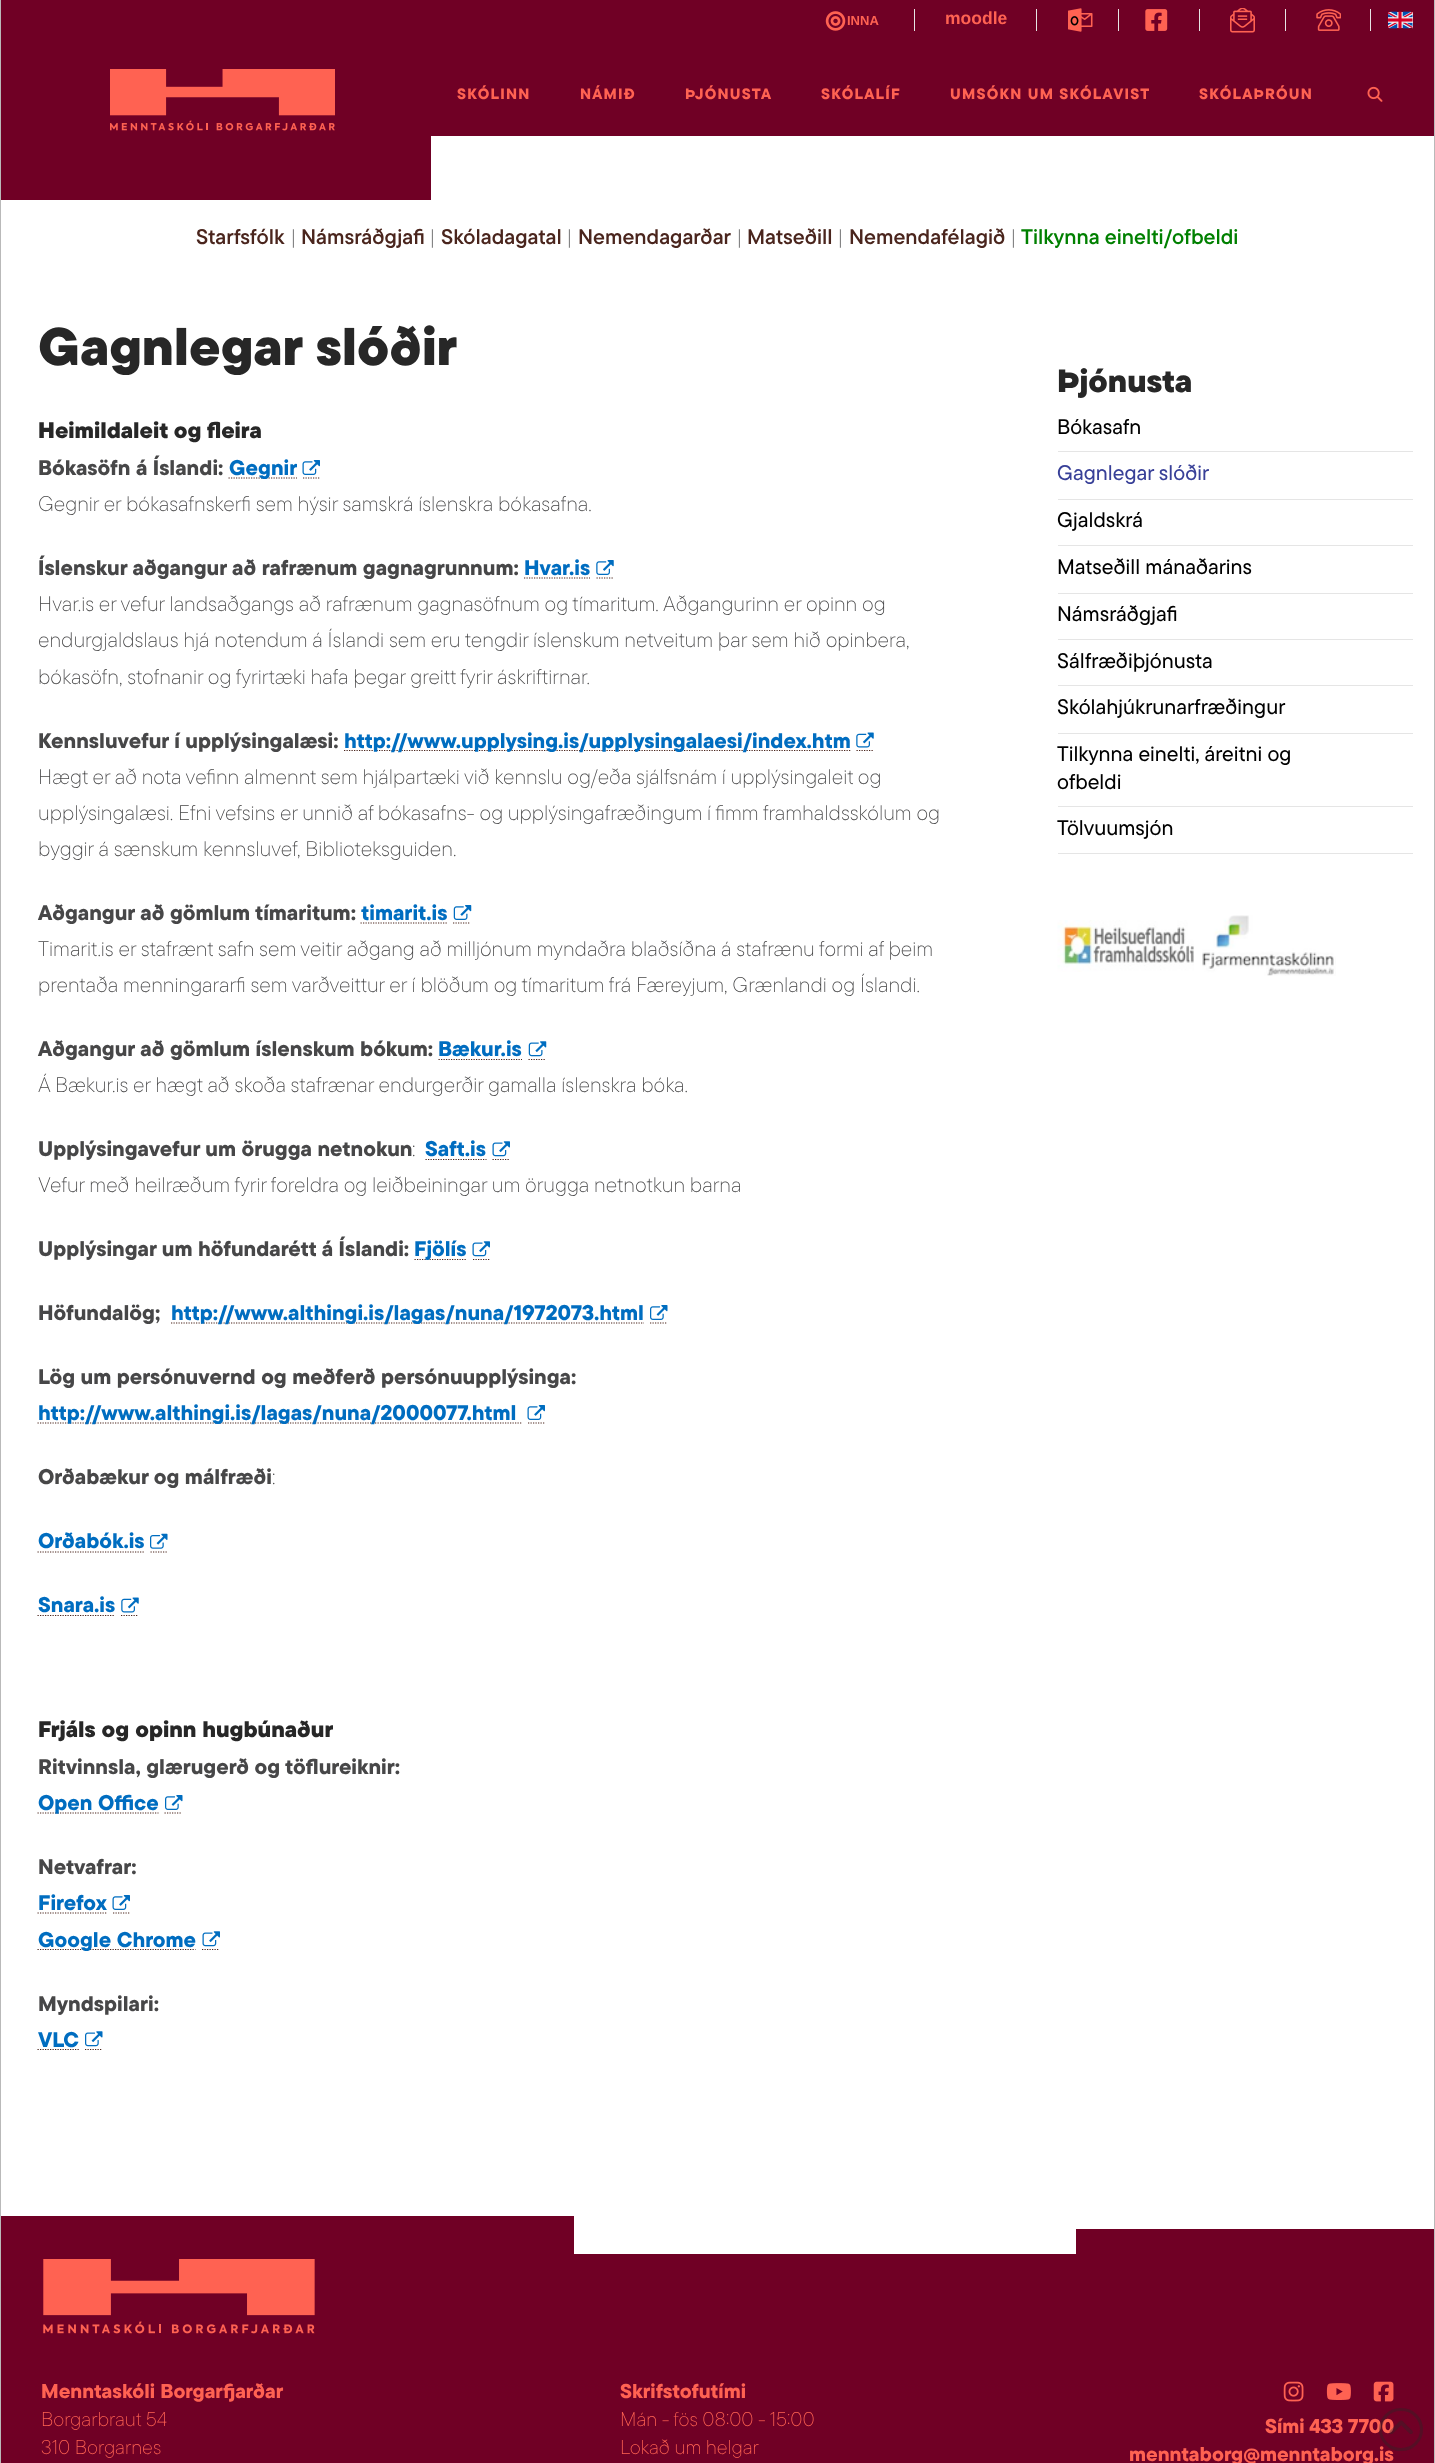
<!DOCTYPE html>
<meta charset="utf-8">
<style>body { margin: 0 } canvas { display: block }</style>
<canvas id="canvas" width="1435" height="2463"></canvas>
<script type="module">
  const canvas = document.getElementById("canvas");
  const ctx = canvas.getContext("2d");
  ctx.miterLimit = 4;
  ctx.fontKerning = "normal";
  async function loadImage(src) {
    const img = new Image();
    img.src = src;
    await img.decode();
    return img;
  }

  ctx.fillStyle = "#ffffff";
  ctx.fillRect(0, 0, 1435, 2463);
  ctx.fillStyle = "#b9b9b9";
  ctx.fillRect(1434, 0, 1, 2463);
  ctx.fillRect(0, 0, 1, 2463);
  ctx.fillStyle = "#700025";
  ctx.fillRect(1, 0, 1433, 136);
  ctx.drawImage(await loadImage("img1.png"), 825, 11, 21, 20);
  ctx.font = "bold 13px Liberation Sans";
  ctx.fillStyle = "#ff6252";
  ctx.fillText("INNA", 847, 25);
  ctx.fillStyle = "#e5e5e5";
  ctx.fillRect(914, 9, 1, 22);
  ctx.font = "bold 17.5px Liberation Sans";
  ctx.fillStyle = "#ff6252";
  ctx.fillText("moodle", 945, 24);
  ctx.fillStyle = "#e5e5e5";
  ctx.fillRect(1036, 9, 1, 22);
  ctx.drawImage(await loadImage("img2.png"), 1068, 8, 25, 24);
  ctx.fillRect(1118, 9, 1, 22);
  ctx.drawImage(await loadImage("img3.png"), 1145, 9, 23, 22);
  ctx.fillRect(1199, 9, 1, 22);
  ctx.drawImage(await loadImage("img4.png"), 1230, 8, 25, 25);
  ctx.fillRect(1285, 9, 1, 22);
  ctx.drawImage(await loadImage("img5.png"), 1316, 9, 25, 22);
  ctx.fillRect(1370, 9, 1, 22);
  ctx.drawImage(await loadImage("img6.png"), 1388, 11, 25, 18);
  ctx.drawImage(await loadImage("img7.png"), 110, 69, 225, 62);
  ctx.letterSpacing = "1.25px";
  ctx.font = "800 15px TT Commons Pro";
  ctx.fillStyle = "#ff6252";
  ctx.fillText("SKÓLINN", 457, 99);
  ctx.fillText("NÁMIÐ", 580, 99);
  ctx.fillText("ÞJÓNUSTA", 685, 99);
  ctx.fillText("SKÓLALÍF", 821, 99);
  ctx.fillText("UMSÓKN UM SKÓLAVIST", 950, 99);
  ctx.fillText("SKÓLAÞRÓUN", 1199, 99);
  ctx.drawImage(await loadImage("img8.png"), 1367, 86, 16, 16);
  ctx.fillStyle = "#700025";
  ctx.fillRect(1, 136, 430, 64);
  ctx.letterSpacing = "0px";
  ctx.font = "600 21.25px TT Commons Pro";
  ctx.fillStyle = "#4a251d";
  ctx.fillText("Starfsfólk", 196, 244);
  ctx.font = "200 21.25px TT Commons Pro";
  ctx.fillStyle = "#474748";
  ctx.fillText("|", 290, 244);
  ctx.font = "600 21.25px TT Commons Pro";
  ctx.fillStyle = "#4a251d";
  ctx.fillText("Námsráðgjafi", 301, 244);
  ctx.font = "200 21.25px TT Commons Pro";
  ctx.fillStyle = "#474748";
  ctx.fillText("|", 429, 244);
  ctx.font = "600 21.25px TT Commons Pro";
  ctx.fillStyle = "#4a251d";
  ctx.fillText("Skóladagatal", 441, 244);
  ctx.font = "200 21.25px TT Commons Pro";
  ctx.fillStyle = "#474748";
  ctx.fillText("|", 566, 244);
  ctx.font = "600 21.25px TT Commons Pro";
  ctx.fillStyle = "#4a251d";
  ctx.fillText("Nemendagarðar", 578, 244);
  ctx.font = "200 21.25px TT Commons Pro";
  ctx.fillStyle = "#474748";
  ctx.fillText("|", 736, 244);
  ctx.font = "600 21.25px TT Commons Pro";
  ctx.fillStyle = "#4a251d";
  ctx.fillText("Matseðill", 747, 244);
  ctx.font = "200 21.25px TT Commons Pro";
  ctx.fillStyle = "#474748";
  ctx.fillText("|", 837, 244);
  ctx.font = "600 21.25px TT Commons Pro";
  ctx.fillStyle = "#4a251d";
  ctx.fillText("Nemendafélagið", 849, 244);
  ctx.font = "200 21.25px TT Commons Pro";
  ctx.fillStyle = "#474748";
  ctx.fillText("|", 1010, 244);
  ctx.font = "600 21.25px TT Commons Pro";
  ctx.fillStyle = "#008000";
  ctx.fillText("Tilkynna einelti/ofbeldi", 1021, 244);
  ctx.font = "900 53px TT Commons Pro";
  ctx.fillStyle = "#272727";
  ctx.fillText("Gagnlegar slóðir", 38, 365);
  ctx.font = "900 22.5px TT Commons Pro";
  ctx.fillText("Heimildaleit og fleira", 38, 438);
  ctx.font = "800 21.25px TT Commons Pro";
  ctx.fillStyle = "#474748";
  ctx.fillText("Bókasöfn á Íslandi:", 38, 475);
  ctx.beginPath();
  ctx.moveTo(228.5, 478);
  ctx.lineTo(297, 478);
  ctx.strokeStyle = "#4a251d";
  ctx.lineWidth = 1.2;
  ctx.setLineDash([1.25, 1.25]);
  ctx.stroke();
  ctx.fillStyle = "#006dc0";
  ctx.fillText("Gegnir", 229, 475);
  ctx.beginPath();
  ctx.moveTo(303, 478);
  ctx.lineTo(320.5, 478);
  ctx.stroke();
  ctx.drawImage(await loadImage("img9.png"), 302, 460, 18, 15);
  ctx.font = "200 21.25px TT Commons Pro";
  ctx.fillStyle = "#474748";
  ctx.fillText("Gegnir er bókasafnskerfi sem hýsir samskrá íslenskra bókasafna.", 38, 511);
  ctx.font = "800 21.25px TT Commons Pro";
  ctx.fillText("Íslenskur aðgangur að rafrænum gagnagrunnum:", 38, 575);
  ctx.fillStyle = "#006dc0";
  ctx.fillText("Hvar.is", 524, 575);
  ctx.beginPath();
  ctx.moveTo(524, 578);
  ctx.lineTo(590, 578);
  ctx.stroke();
  ctx.beginPath();
  ctx.moveTo(596.5, 578);
  ctx.lineTo(614, 578);
  ctx.stroke();
  ctx.drawImage(await loadImage("img10.png"), 596, 560, 18, 15);
  ctx.font = "200 21.25px TT Commons Pro";
  ctx.fillStyle = "#474748";
  ctx.fillText("Hvar.is er vefur landsaðgangs að rafrænum gagnasöfnum og tímaritum. Aðgangurinn er opinn og", 38, 611);
  ctx.fillText("endurgjaldslaus hjá notendum á Íslandi sem eru tengdir íslenskum netveitum þar sem hið opinbera,", 38, 647);
  ctx.fillText("bókasöfn, stofnanir og fyrirtæki hafa þegar greitt fyrir áskriftirnar.", 38, 684);
  ctx.font = "800 21.25px TT Commons Pro";
  ctx.fillText("Kennsluvefur í upplýsingalæsi:", 38, 748);
  ctx.beginPath();
  ctx.moveTo(344, 750.5);
  ctx.lineTo(850.5, 750.5);
  ctx.stroke();
  ctx.fillStyle = "#006dc0";
  ctx.fillText("http://www.upplysing.is/upplysingalaesi/index.htm", 344, 748);
  ctx.beginPath();
  ctx.moveTo(856.5, 750.5);
  ctx.lineTo(874, 750.5);
  ctx.stroke();
  ctx.drawImage(await loadImage("img11.png"), 856, 732, 18, 16);
  ctx.font = "200 21.25px TT Commons Pro";
  ctx.fillStyle = "#474748";
  ctx.fillText("Hægt er að nota vefinn almennt sem hjálpartæki við kennslu og/eða sjálfsnám í upplýsingaleit og", 38, 784);
  ctx.fillText("upplýsingalæsi. Efni vefsins er unnið af bókasafns- og upplýsingafræðingum í fimm framhaldsskólum og", 38, 820);
  ctx.fillText("byggir á sænskum kennsluvef, Biblioteksguiden.", 38, 856);
  ctx.font = "800 21.25px TT Commons Pro";
  ctx.fillText("Aðgangur að gömlum tímaritum:", 38, 920);
  ctx.fillStyle = "#006dc0";
  ctx.fillText("timarit.is", 361, 920);
  ctx.beginPath();
  ctx.moveTo(360.5, 923);
  ctx.lineTo(447, 923);
  ctx.stroke();
  ctx.beginPath();
  ctx.moveTo(453, 923);
  ctx.lineTo(470.5, 923);
  ctx.stroke();
  ctx.drawImage(await loadImage("img12.png"), 453, 905, 19, 15);
  ctx.font = "200 21.25px TT Commons Pro";
  ctx.fillStyle = "#474748";
  ctx.fillText("Timarit.is er stafrænt safn sem veitir aðgang að milljónum myndaðra blaðsíðna á stafrænu formi af þeim", 38, 956);
  ctx.fillText("prentaða menningararfi sem varðveittur er í blöðum og tímaritum frá Færeyjum, Grænlandi og Íslandi.", 38, 992);
  ctx.font = "800 21.25px TT Commons Pro";
  ctx.fillText("Aðgangur að gömlum íslenskum bókum:", 38, 1056);
  ctx.fillStyle = "#006dc0";
  ctx.fillText("Bækur.is", 438, 1056);
  ctx.beginPath();
  ctx.moveTo(438.5, 1059.5);
  ctx.lineTo(522, 1059.5);
  ctx.stroke();
  ctx.beginPath();
  ctx.moveTo(528.5, 1059.5);
  ctx.lineTo(546, 1059.5);
  ctx.stroke();
  ctx.drawImage(await loadImage("img13.png"), 528, 1041, 19, 16);
  ctx.font = "200 21.25px TT Commons Pro";
  ctx.fillStyle = "#474748";
  ctx.fillText("Á Bækur.is er hægt að skoða stafrænar endurgerðir gamalla íslenskra bóka.", 38, 1092);
  ctx.font = "800 21.25px TT Commons Pro";
  ctx.fillText("Upplýsingavefur um örugga netnokun", 38, 1156);
  ctx.font = "200 21.25px TT Commons Pro";
  ctx.fillText(":", 412, 1156);
  ctx.font = "800 21.25px TT Commons Pro";
  ctx.fillStyle = "#006dc0";
  ctx.fillText("Saft.is", 425, 1156);
  ctx.beginPath();
  ctx.moveTo(425.5, 1159.5);
  ctx.lineTo(486.5, 1159.5);
  ctx.stroke();
  ctx.beginPath();
  ctx.moveTo(492.5, 1159.5);
  ctx.lineTo(510, 1159.5);
  ctx.stroke();
  ctx.drawImage(await loadImage("img14.png"), 492, 1141, 18, 16);
  ctx.font = "200 21.25px TT Commons Pro";
  ctx.fillStyle = "#474748";
  ctx.fillText("Vefur með heilræðum fyrir foreldra og leiðbeiningar um örugga netnotkun barna", 38, 1192);
  ctx.font = "800 21.25px TT Commons Pro";
  ctx.fillText("Upplýsingar um höfundarétt á Íslandi:", 38, 1256);
  ctx.beginPath();
  ctx.moveTo(414.5, 1259.5);
  ctx.lineTo(467, 1259.5);
  ctx.stroke();
  ctx.fillStyle = "#006dc0";
  ctx.fillText("Fjölís", 414, 1256);
  ctx.beginPath();
  ctx.moveTo(473, 1259.5);
  ctx.lineTo(490.5, 1259.5);
  ctx.stroke();
  ctx.drawImage(await loadImage("img14.png"), 472, 1241, 18, 16);
  ctx.fillStyle = "#474748";
  ctx.fillText("Höfundalög;", 38, 1320);
  ctx.beginPath();
  ctx.moveTo(171, 1323);
  ctx.lineTo(644, 1323);
  ctx.stroke();
  ctx.fillStyle = "#006dc0";
  ctx.fillText("http://www.althingi.is/lagas/nuna/1972073.html", 171, 1320);
  ctx.beginPath();
  ctx.moveTo(650, 1323);
  ctx.lineTo(667.5, 1323);
  ctx.stroke();
  ctx.drawImage(await loadImage("img15.png"), 650, 1305, 18, 15);
  ctx.fillStyle = "#474748";
  ctx.fillText("Lög um persónuvernd og meðferð persónuupplýsinga:", 38, 1384);
  ctx.beginPath();
  ctx.moveTo(37.5, 1423);
  ctx.lineTo(521.5, 1423);
  ctx.stroke();
  ctx.fillStyle = "#006dc0";
  ctx.fillText("http://www.althingi.is/lagas/nuna/2000077.html", 38, 1420);
  ctx.beginPath();
  ctx.moveTo(528, 1423);
  ctx.lineTo(545.5, 1423);
  ctx.stroke();
  ctx.drawImage(await loadImage("img9.png"), 527, 1405, 18, 15);
  ctx.fillStyle = "#474748";
  ctx.fillText("Orðabækur og málfræði", 38, 1484);
  ctx.font = "200 21.25px TT Commons Pro";
  ctx.fillText(":", 272, 1484);
  ctx.font = "800 21.25px TT Commons Pro";
  ctx.fillStyle = "#006dc0";
  ctx.fillText("Orðabók.is", 38, 1548);
  ctx.beginPath();
  ctx.moveTo(37.5, 1552);
  ctx.lineTo(144.5, 1552);
  ctx.stroke();
  ctx.beginPath();
  ctx.moveTo(150.5, 1552);
  ctx.lineTo(168, 1552);
  ctx.stroke();
  ctx.drawImage(await loadImage("img16.png"), 150, 1533, 18, 16);
  ctx.fillText("Snara.is", 38, 1612);
  ctx.beginPath();
  ctx.moveTo(37.5, 1615.5);
  ctx.lineTo(115, 1615.5);
  ctx.stroke();
  ctx.beginPath();
  ctx.moveTo(121, 1615.5);
  ctx.lineTo(138.5, 1615.5);
  ctx.stroke();
  ctx.drawImage(await loadImage("img11.png"), 121, 1597, 18, 16);
  ctx.font = "900 22.5px TT Commons Pro";
  ctx.fillStyle = "#272727";
  ctx.fillText("Frjáls og opinn hugbúnaður", 38, 1737);
  ctx.font = "800 21.25px TT Commons Pro";
  ctx.fillStyle = "#474748";
  ctx.fillText("Ritvinnsla, glærugerð og töflureiknir:", 38, 1774);
  ctx.beginPath();
  ctx.moveTo(37.5, 1813);
  ctx.lineTo(158.5, 1813);
  ctx.stroke();
  ctx.fillStyle = "#006dc0";
  ctx.fillText("Open Office", 38, 1810);
  ctx.beginPath();
  ctx.moveTo(164.5, 1813);
  ctx.lineTo(182, 1813);
  ctx.stroke();
  ctx.drawImage(await loadImage("img15.png"), 165, 1795, 18, 15);
  ctx.fillStyle = "#474748";
  ctx.fillText("Netvafrar:", 38, 1874);
  ctx.fillStyle = "#006dc0";
  ctx.fillText("Firefox", 38, 1910);
  ctx.beginPath();
  ctx.moveTo(37.5, 1913);
  ctx.lineTo(106.5, 1913);
  ctx.stroke();
  ctx.beginPath();
  ctx.moveTo(113, 1913);
  ctx.lineTo(130.5, 1913);
  ctx.stroke();
  ctx.drawImage(await loadImage("img9.png"), 112, 1895, 18, 15);
  ctx.beginPath();
  ctx.moveTo(37.5, 1949.5);
  ctx.lineTo(195.5, 1949.5);
  ctx.stroke();
  ctx.fillText("Google Chrome", 38, 1947);
  ctx.beginPath();
  ctx.moveTo(202, 1949.5);
  ctx.lineTo(219.5, 1949.5);
  ctx.stroke();
  ctx.drawImage(await loadImage("img14.png"), 202, 1931, 18, 16);
  ctx.fillStyle = "#474748";
  ctx.fillText("Myndspilari:", 38, 2011);
  ctx.fillStyle = "#006dc0";
  ctx.fillText("VLC", 38, 2047);
  ctx.beginPath();
  ctx.moveTo(37.5, 2049.5);
  ctx.lineTo(79, 2049.5);
  ctx.stroke();
  ctx.beginPath();
  ctx.moveTo(85, 2049.5);
  ctx.lineTo(102.5, 2049.5);
  ctx.stroke();
  ctx.drawImage(await loadImage("img17.png"), 85, 2031, 18, 16);
  ctx.font = "900 32px TT Commons Pro";
  ctx.fillStyle = "#272727";
  ctx.fillText("Þjónusta", 1057, 392);
  ctx.fillStyle = "#e5e5e5";
  ctx.fillRect(1058, 451, 355, 1);
  ctx.font = "500 21.25px TT Commons Pro";
  ctx.fillStyle = "#000000";
  ctx.fillText("Bókasafn", 1057, 434);
  ctx.fillStyle = "#e5e5e5";
  ctx.fillRect(1058, 499, 355, 1);
  ctx.fillStyle = "#384098";
  ctx.fillText("Gagnlegar slóðir", 1057, 480);
  ctx.fillStyle = "#e5e5e5";
  ctx.fillRect(1058, 545, 355, 1);
  ctx.fillStyle = "#000000";
  ctx.fillText("Gjaldskrá", 1057, 527);
  ctx.fillStyle = "#e5e5e5";
  ctx.fillRect(1058, 593, 355, 1);
  ctx.fillStyle = "#000000";
  ctx.fillText("Matseðill mánaðarins", 1057, 574);
  ctx.fillStyle = "#e5e5e5";
  ctx.fillRect(1058, 639, 355, 1);
  ctx.fillStyle = "#000000";
  ctx.fillText("Námsráðgjafi", 1057, 621);
  ctx.fillStyle = "#e5e5e5";
  ctx.fillRect(1058, 685, 355, 1);
  ctx.fillStyle = "#000000";
  ctx.fillText("Sálfræðiþjónusta", 1057, 668);
  ctx.fillStyle = "#e5e5e5";
  ctx.fillRect(1058, 733, 355, 1);
  ctx.fillStyle = "#000000";
  ctx.fillText("Skólahjúkrunarfræðingur", 1057, 714);
  ctx.fillStyle = "#e5e5e5";
  ctx.fillRect(1058, 806, 355, 1);
  ctx.fillStyle = "#000000";
  ctx.fillText("Tilkynna einelti, áreitni og", 1057, 761);
  ctx.fillText("ofbeldi", 1057, 789);
  ctx.fillStyle = "#e5e5e5";
  ctx.fillRect(1058, 853, 355, 1);
  ctx.fillStyle = "#000000";
  ctx.fillText("Tölvuumsjón", 1057, 835);
  ctx.drawImage(await loadImage("img18.png"), 1057, 920, 137, 52);
  ctx.drawImage(await loadImage("img19.png"), 1202, 915, 134, 61);
  ctx.fillStyle = "#700025";
  ctx.fillRect(1, 2216, 573, 38);
  ctx.fillRect(1076, 2229, 358, 25);
  ctx.fillRect(1, 2254, 1433, 209);
  ctx.drawImage(await loadImage("img20.png"), 43, 2259, 272, 75);
  ctx.font = "800 20px TT Commons Pro";
  ctx.fillStyle = "#ff6252";
  ctx.fillText("Menntaskóli Borgarfjarðar", 41, 2398);
  ctx.font = "200 20px TT Commons Pro";
  ctx.fillText("Borgarbraut 54", 41, 2426);
  ctx.fillText("310 Borgarnes", 41, 2454);
  ctx.font = "800 20px TT Commons Pro";
  ctx.fillText("Skrifstofutími", 620, 2398);
  ctx.font = "200 20px TT Commons Pro";
  ctx.fillText("Mán - fös 08:00 - 15:00", 620, 2426);
  ctx.fillText("Lokað um helgar", 620, 2454);
  ctx.drawImage(await loadImage("img21.png"), 1283, 2381, 21, 21);
  ctx.drawImage(await loadImage("img22.png"), 1326, 2383, 25, 17);
  ctx.drawImage(await loadImage("img23.png"), 1373, 2381, 21, 21);
  ctx.font = "800 20px TT Commons Pro";
  ctx.fillText("Sími 433 7700", 1265, 2433);
  ctx.fillText("menntaborg@menntaborg.is", 1129, 2461);
  ctx.beginPath();
  ctx.roundRect(1380.5, 2409.5, 41, 40, 20);
  ctx.strokeStyle = "rgba(39, 39, 39, 0.38)";
  ctx.lineWidth = 3;
  ctx.setLineDash([]);
  ctx.stroke();
  ctx.drawImage(await loadImage("img24.png"), 1389, 2420, 24, 14);
</script>
